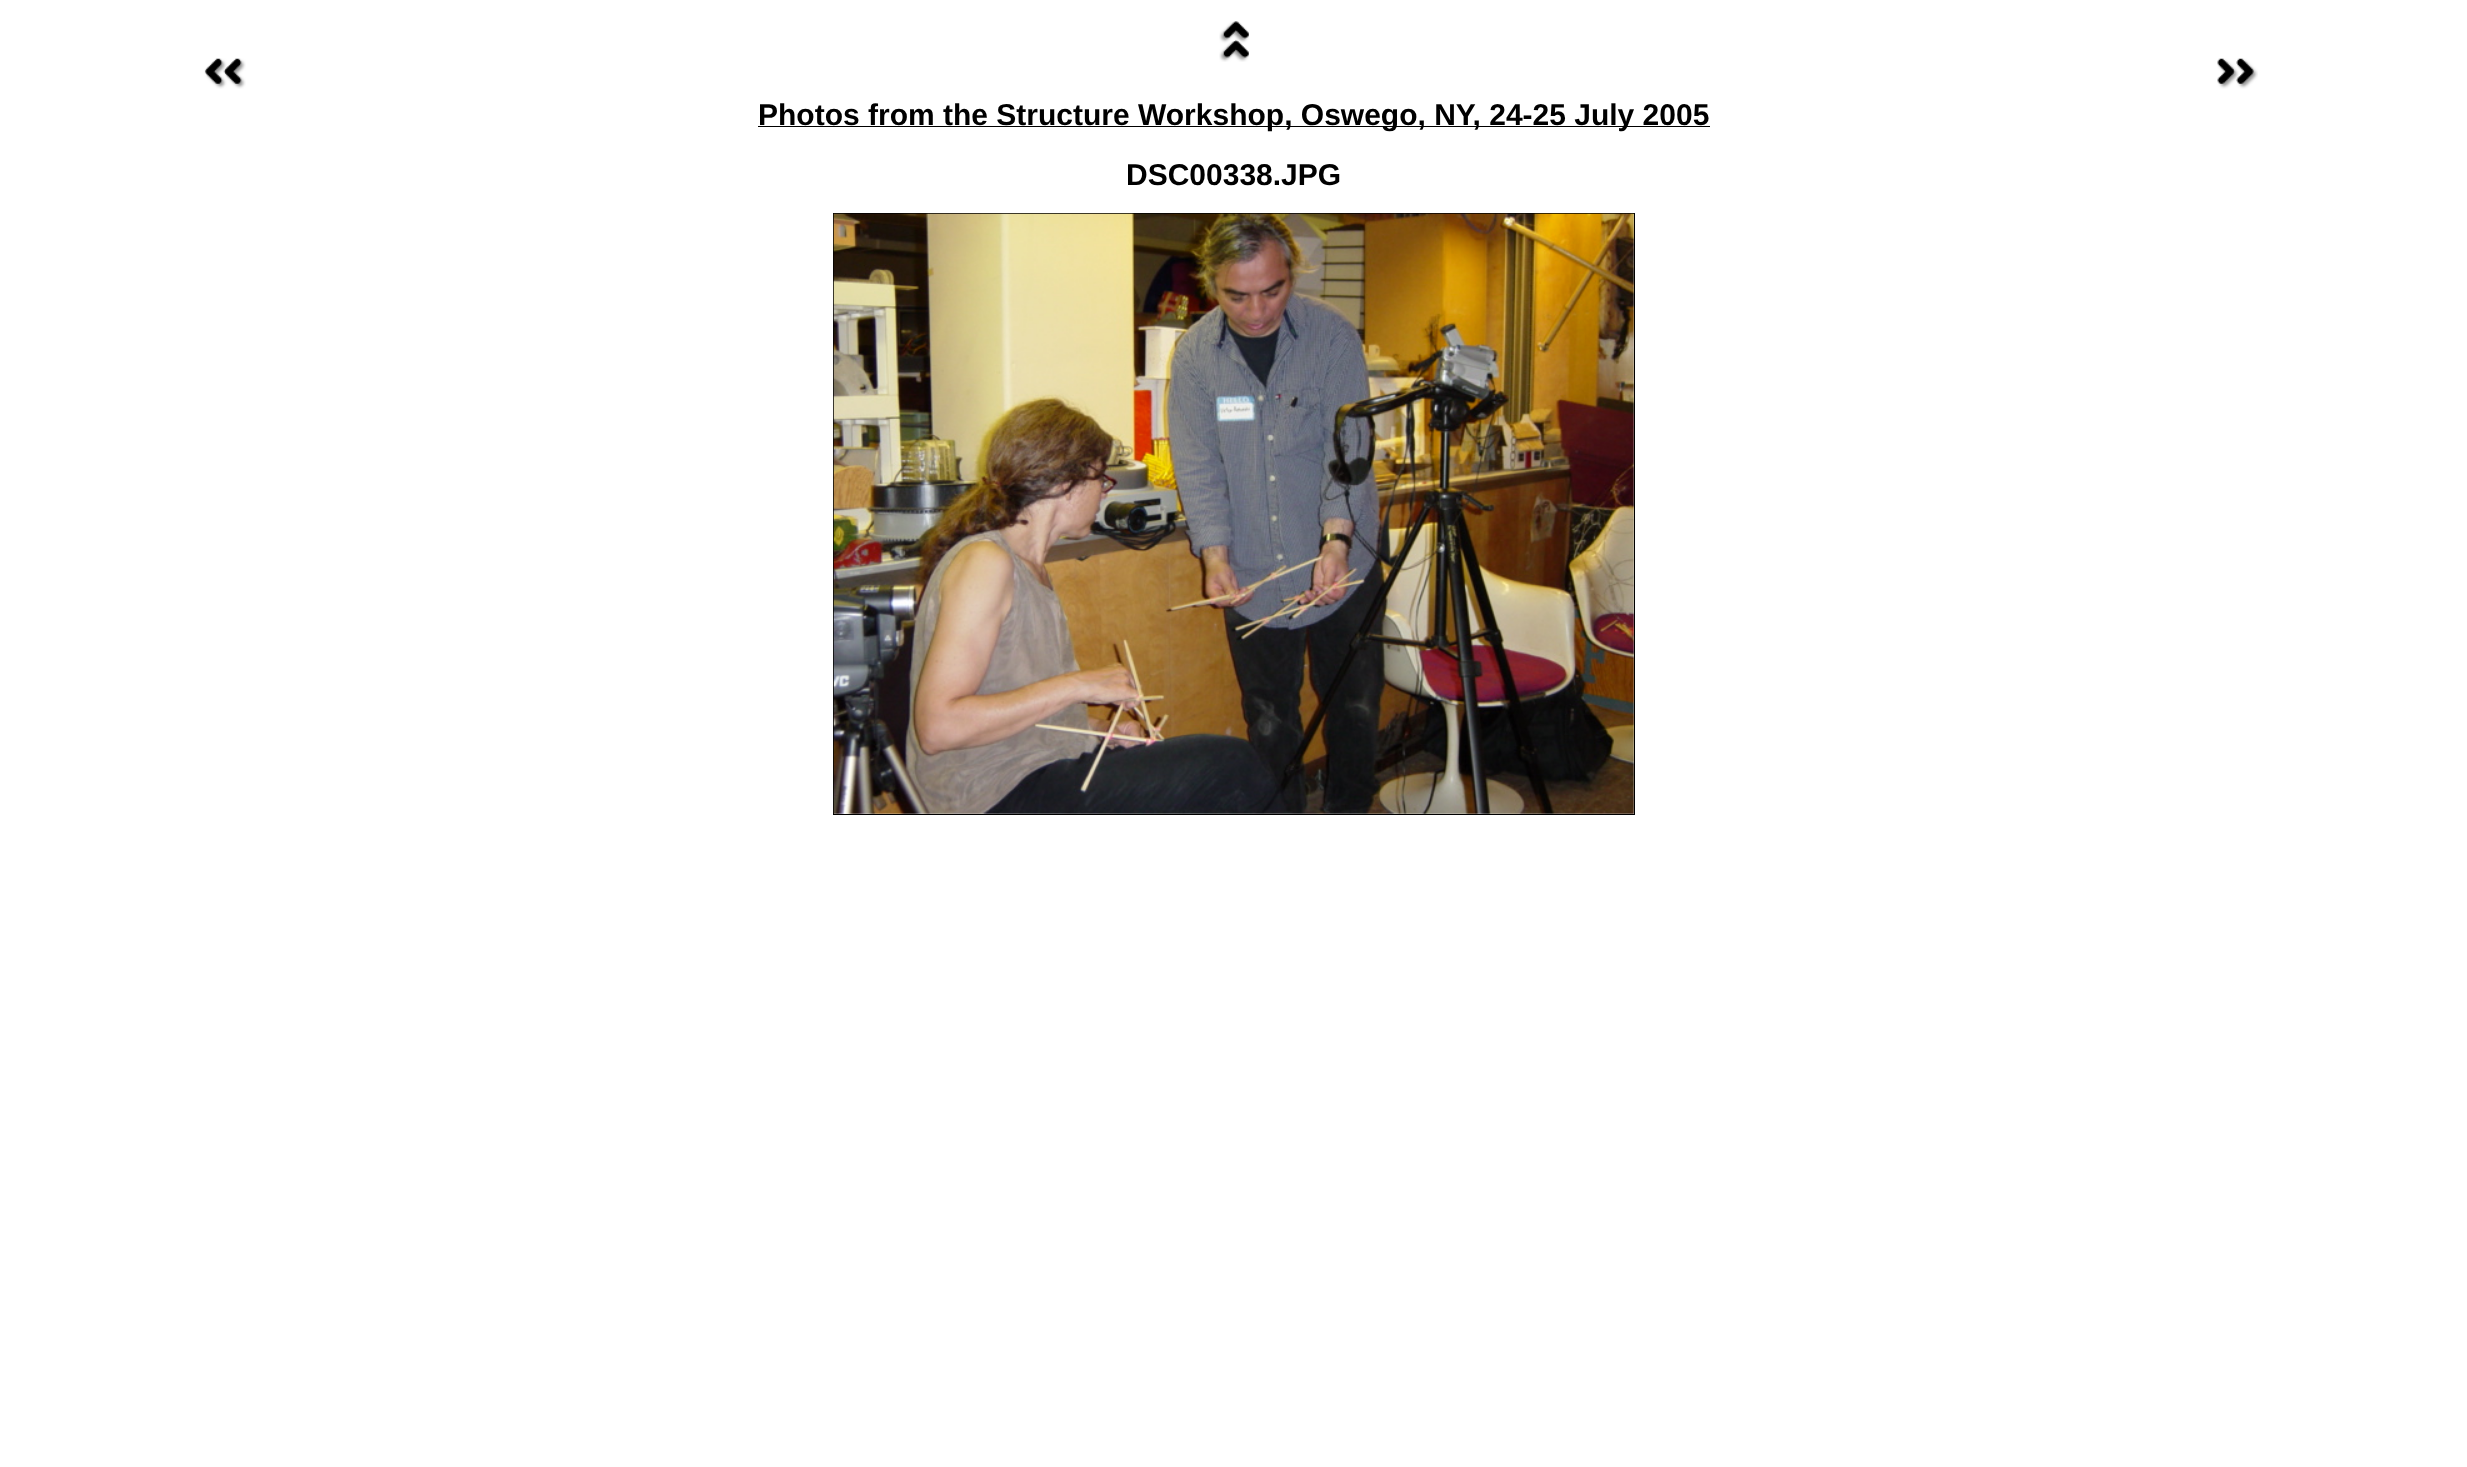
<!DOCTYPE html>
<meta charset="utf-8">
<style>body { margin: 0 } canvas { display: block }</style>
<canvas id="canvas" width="2467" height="1467"></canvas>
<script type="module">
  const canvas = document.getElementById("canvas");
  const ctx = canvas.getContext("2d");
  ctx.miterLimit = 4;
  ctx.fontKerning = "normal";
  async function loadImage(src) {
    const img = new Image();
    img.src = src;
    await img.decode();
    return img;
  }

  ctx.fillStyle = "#ffffff";
  ctx.fillRect(0, 0, 2467, 1467);
  ctx.drawImage(await loadImage("img1.png"), 204, 58, 42, 31);
  ctx.drawImage(await loadImage("img2.png"), 2217, 58, 41, 31);
  ctx.drawImage(await loadImage("img3.png"), 1219, 21, 30, 41);
  ctx.fillStyle = "#000000";
  ctx.fillRect(758, 126, 952, 1);
  ctx.font = "bold 30px Liberation Sans";
  ctx.fillText("Photos from the Structure Workshop, Oswego, NY, 24-25 July 2005", 758, 125);
  ctx.fillText("DSC00338.JPG", 1126, 185);
  ctx.strokeStyle = "#000000";
  ctx.strokeRect(833.5, 213.5, 801, 601);
  ctx.drawImage(await loadImage("img4.png"), 833, 213, 801, 601);
</script>
